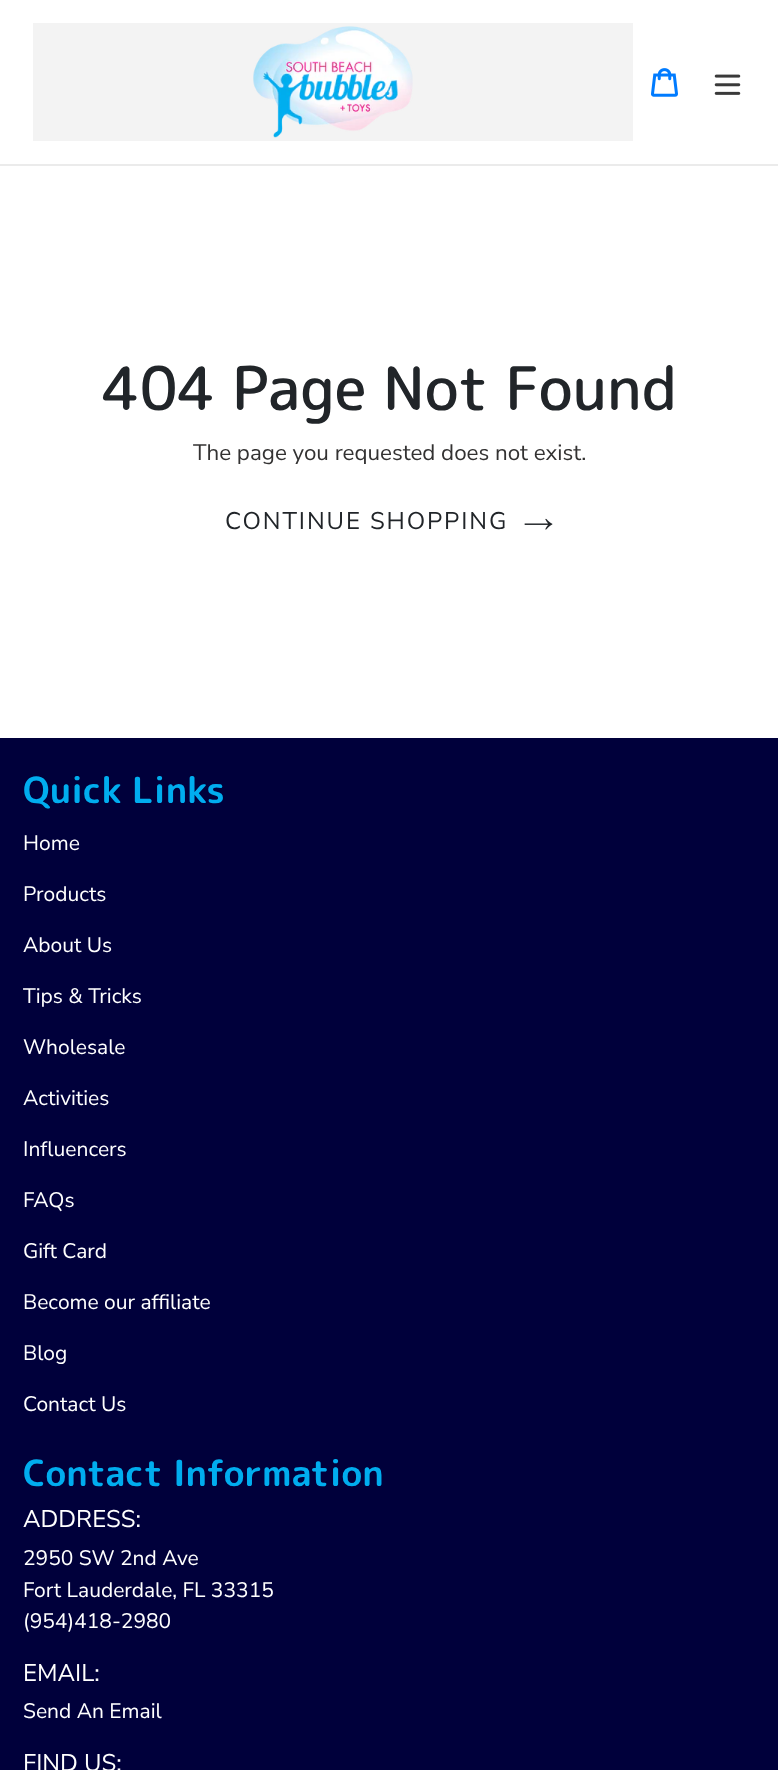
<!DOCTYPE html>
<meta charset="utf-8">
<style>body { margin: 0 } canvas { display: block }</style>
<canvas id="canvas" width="778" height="1770"></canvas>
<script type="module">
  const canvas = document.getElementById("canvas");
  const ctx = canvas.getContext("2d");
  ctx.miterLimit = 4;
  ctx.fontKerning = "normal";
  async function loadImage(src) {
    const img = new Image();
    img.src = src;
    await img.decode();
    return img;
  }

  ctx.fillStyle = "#ffffff";
  ctx.fillRect(0, 0, 778, 1770);
  ctx.fillStyle = "#ebebeb";
  ctx.fillRect(0, 164, 778, 2);
  ctx.fillStyle = "#f3f3f3";
  ctx.fillRect(33, 23, 600, 118);
  ctx.drawImage(await loadImage("img1.png"), 253, 26, 160, 112);
  ctx.drawImage(await loadImage("img2.png"), 651, 68, 27, 29);
  ctx.drawImage(await loadImage("img3.png"), 714, 74, 27, 21);
  ctx.font = "500 60px 'Rounded Mplus 1c'";
  ctx.fillStyle = "#212529";
  ctx.fillText("404 Page Not Found", 102, 410);
  ctx.font = "22.4px Nunito Sans";
  ctx.fillStyle = "#333232";
  ctx.fillText("The page you requested does not exist.", 193, 460);
  ctx.letterSpacing = "1.9px";
  ctx.font = "24px Nunito Sans";
  ctx.fillStyle = "#212529";
  ctx.fillText("CONTINUE SHOPPING", 225, 529);
  ctx.drawImage(await loadImage("img4.png"), 524, 518, 29, 12);
  ctx.fillStyle = "#00003b";
  ctx.fillRect(0, 738, 778, 1032);
  ctx.letterSpacing = "0px";
  ctx.font = "bold 36px 'Rounded Mplus 1c Bold'";
  ctx.fillStyle = "#00adef";
  ctx.fillText("Quick Links", 23, 803);
  ctx.font = "21px Nunito Sans";
  ctx.fillStyle = "#ffffff";
  ctx.fillText("Home", 23, 850);
  ctx.fillText("Products", 23, 901);
  ctx.fillText("About Us", 23, 952);
  ctx.fillText("Tips & Tricks", 23, 1003);
  ctx.fillText("Wholesale", 23, 1054);
  ctx.fillText("Activities", 23, 1105);
  ctx.fillText("Influencers", 23, 1156);
  ctx.fillText("FAQs", 23, 1207);
  ctx.fillText("Gift Card", 23, 1258);
  ctx.fillText("Become our affiliate", 23, 1309);
  ctx.fillText("Blog", 23, 1360);
  ctx.fillText("Contact Us", 23, 1411);
  ctx.font = "bold 36px 'Rounded Mplus 1c Bold'";
  ctx.fillStyle = "#00adef";
  ctx.fillText("Contact Information", 23, 1486);
  ctx.font = "24px Nunito Sans";
  ctx.fillStyle = "#ffffff";
  ctx.fillText("ADDRESS:", 23, 1527);
  ctx.font = "21px Nunito Sans";
  ctx.fillText("2950 SW 2nd Ave", 23, 1565);
  ctx.fillText("Fort Lauderdale, FL 33315", 23, 1597);
  ctx.fillText("(954)418-2980", 23, 1628);
  ctx.font = "24px Nunito Sans";
  ctx.fillText("EMAIL:", 23, 1681);
  ctx.font = "21px Nunito Sans";
  ctx.fillText("Send An Email", 23, 1718);
  ctx.font = "24px Nunito Sans";
  ctx.fillText("FIND US:", 23, 1771);
</script>
